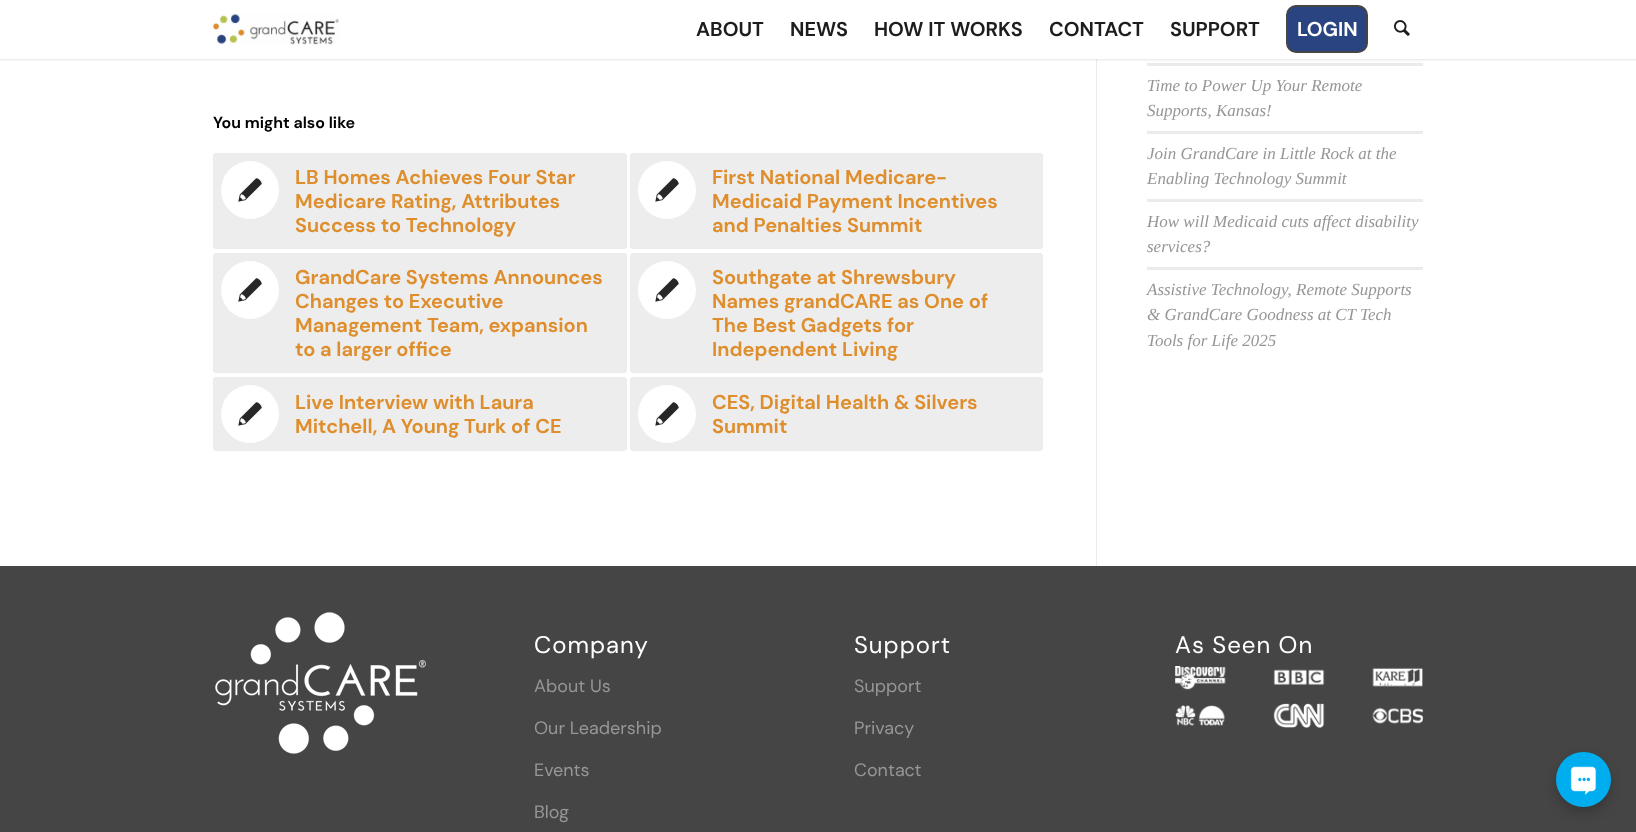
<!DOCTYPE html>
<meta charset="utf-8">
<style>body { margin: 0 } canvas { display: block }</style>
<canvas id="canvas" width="1636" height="832"></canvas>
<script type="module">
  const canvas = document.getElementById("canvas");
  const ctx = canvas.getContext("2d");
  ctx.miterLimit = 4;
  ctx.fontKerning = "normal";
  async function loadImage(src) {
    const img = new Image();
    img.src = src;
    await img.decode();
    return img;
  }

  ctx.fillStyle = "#ffffff";
  ctx.fillRect(0, 0, 1636, 832);
  ctx.fillStyle = "#ebebeb";
  ctx.fillRect(1096, 59, 1, 507);
  ctx.fillRect(1147, 63, 276, 3);
  ctx.fillStyle = "rgba(0, 0, 0, 0.1)";
  ctx.filter = "blur(1px)";
  ctx.beginPath();
  ctx.rect(-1, -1, 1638, 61);
  ctx.fill();
  ctx.filter = "none";
  ctx.fillStyle = "#ffffff";
  ctx.fillRect(0, 0, 1636, 59);
  ctx.drawImage(await loadImage("img1.png"), 213, 13, 127, 32);
  ctx.font = "bold 20px DM Sans";
  ctx.fillStyle = "#1e1c1d";
  ctx.fillText("ABOUT", 696, 36);
  ctx.fillText("NEWS", 790, 36);
  ctx.fillText("HOW IT WORKS", 874, 36);
  ctx.fillText("CONTACT", 1049, 36);
  ctx.fillText("SUPPORT", 1170, 36);
  ctx.fillStyle = "#294481";
  ctx.beginPath();
  ctx.roundRect(1287, 6, 80, 46, 9);
  ctx.fill();
  ctx.strokeStyle = "#454545";
  ctx.lineWidth = 2;
  ctx.stroke();
  ctx.fillStyle = "#ffffff";
  ctx.fillText("LOGIN", 1297, 36);
  ctx.drawImage(await loadImage("img2.png"), 1394, 20, 16, 16);
  ctx.font = "bold 16px DM Sans";
  ctx.fillStyle = "#000000";
  ctx.fillText("You might also like", 213, 128);
  ctx.fillStyle = "#ededed";
  ctx.beginPath();
  ctx.roundRect(213.5, 153.5, 413, 95, 2.5);
  ctx.fill();
  ctx.strokeStyle = "#ebebeb";
  ctx.lineWidth = 1;
  ctx.stroke();
  ctx.fillStyle = "#ffffff";
  ctx.beginPath();
  ctx.arc(250, 190, 29, 0, Math.PI * 2);
  ctx.fill();
  ctx.drawImage(await loadImage("img3.png"), 238, 178, 24, 24);
  ctx.font = "bold 20px DM Sans";
  ctx.fillStyle = "#de8e2d";
  ctx.fillText("LB Homes Achieves Four Star", 295, 184);
  ctx.fillText("Medicare Rating, Attributes", 295, 208);
  ctx.fillText("Success to Technology", 295, 232);
  ctx.fillStyle = "#ededed";
  ctx.beginPath();
  ctx.roundRect(630.5, 153.5, 412, 95, 2.5);
  ctx.fill();
  ctx.stroke();
  ctx.fillStyle = "#ffffff";
  ctx.beginPath();
  ctx.arc(667, 190, 29, 0, Math.PI * 2);
  ctx.fill();
  ctx.drawImage(await loadImage("img3.png"), 655, 178, 24, 24);
  ctx.fillStyle = "#de8e2d";
  ctx.fillText("First National Medicare-", 712, 184);
  ctx.fillText("Medicaid Payment Incentives", 712, 208);
  ctx.fillText("and Penalties Summit", 712, 232);
  ctx.fillStyle = "#ededed";
  ctx.beginPath();
  ctx.roundRect(213.5, 253.5, 413, 119, 2.5);
  ctx.fill();
  ctx.stroke();
  ctx.fillStyle = "#ffffff";
  ctx.beginPath();
  ctx.arc(250, 290, 29, 0, Math.PI * 2);
  ctx.fill();
  ctx.drawImage(await loadImage("img3.png"), 238, 278, 24, 24);
  ctx.fillStyle = "#de8e2d";
  ctx.fillText("GrandCare Systems Announces", 295, 284);
  ctx.fillText("Changes to Executive", 295, 308);
  ctx.fillText("Management Team, expansion", 295, 332);
  ctx.fillText("to a larger office", 295, 356);
  ctx.fillStyle = "#ededed";
  ctx.beginPath();
  ctx.roundRect(630.5, 253.5, 412, 119, 2.5);
  ctx.fill();
  ctx.stroke();
  ctx.fillStyle = "#ffffff";
  ctx.beginPath();
  ctx.arc(667, 290, 29, 0, Math.PI * 2);
  ctx.fill();
  ctx.drawImage(await loadImage("img3.png"), 655, 278, 24, 24);
  ctx.fillStyle = "#de8e2d";
  ctx.fillText("Southgate at Shrewsbury", 712, 284);
  ctx.fillText("Names grandCARE as One of", 712, 308);
  ctx.fillText("The Best Gadgets for", 712, 332);
  ctx.fillText("Independent Living", 712, 356);
  ctx.fillStyle = "#ededed";
  ctx.beginPath();
  ctx.roundRect(213.5, 377.5, 413, 73, 2.5);
  ctx.fill();
  ctx.stroke();
  ctx.fillStyle = "#ffffff";
  ctx.beginPath();
  ctx.arc(250, 414, 29, 0, Math.PI * 2);
  ctx.fill();
  ctx.drawImage(await loadImage("img3.png"), 238, 402, 24, 24);
  ctx.fillStyle = "#de8e2d";
  ctx.fillText("Live Interview with Laura", 295, 409);
  ctx.fillText("Mitchell, A Young Turk of CE", 295, 433);
  ctx.fillStyle = "#ededed";
  ctx.beginPath();
  ctx.roundRect(630.5, 377.5, 412, 73, 2.5);
  ctx.fill();
  ctx.stroke();
  ctx.fillStyle = "#ffffff";
  ctx.beginPath();
  ctx.arc(667, 414, 29, 0, Math.PI * 2);
  ctx.fill();
  ctx.drawImage(await loadImage("img3.png"), 655, 402, 24, 24);
  ctx.fillStyle = "#de8e2d";
  ctx.fillText("CES, Digital Health & Silvers", 712, 409);
  ctx.fillText("Summit", 712, 433);
  ctx.font = "italic 17px Liberation Serif";
  ctx.fillStyle = "#969696";
  ctx.fillText("Time to Power Up Your Remote", 1147, 91);
  ctx.fillText("Supports, Kansas!", 1147, 116);
  ctx.fillStyle = "#ebebeb";
  ctx.fillRect(1147, 131, 276, 3);
  ctx.fillStyle = "#969696";
  ctx.fillText("Join GrandCare in Little Rock at the", 1147, 159);
  ctx.fillText("Enabling Technology Summit", 1147, 184);
  ctx.fillStyle = "#ebebeb";
  ctx.fillRect(1147, 199, 276, 3);
  ctx.fillStyle = "#969696";
  ctx.fillText("How will Medicaid cuts affect disability", 1147, 227);
  ctx.fillText("services?", 1147, 252);
  ctx.fillStyle = "#ebebeb";
  ctx.fillRect(1147, 267, 276, 3);
  ctx.fillStyle = "#969696";
  ctx.fillText("Assistive Technology, Remote Supports", 1147, 295);
  ctx.fillText("& GrandCare Goodness at CT Tech", 1147, 320);
  ctx.fillText("Tools for Life 2025", 1147, 346);
  ctx.fillStyle = "#454545";
  ctx.fillRect(0, 566, 1636, 266);
  ctx.drawImage(await loadImage("img4.png"), 215, 612, 211, 142);
  ctx.letterSpacing = "1px";
  ctx.font = "24px DM Sans";
  ctx.fillStyle = "#ffffff";
  ctx.fillText("Company", 534, 653);
  ctx.letterSpacing = "0px";
  ctx.font = "18px DM Sans";
  ctx.fillStyle = "#969696";
  ctx.fillText("About Us", 534, 692);
  ctx.fillText("Our Leadership", 534, 734);
  ctx.fillText("Events", 534, 776);
  ctx.fillText("Blog", 534, 818);
  ctx.letterSpacing = "1px";
  ctx.font = "24px DM Sans";
  ctx.fillStyle = "#ffffff";
  ctx.fillText("Support", 854, 653);
  ctx.letterSpacing = "0px";
  ctx.font = "18px DM Sans";
  ctx.fillStyle = "#969696";
  ctx.fillText("Support", 854, 692);
  ctx.fillText("Privacy", 854, 734);
  ctx.fillText("Contact", 854, 776);
  ctx.letterSpacing = "1px";
  ctx.font = "24px DM Sans";
  ctx.fillStyle = "#ffffff";
  ctx.fillText("As Seen On", 1175, 653);
  ctx.drawImage(await loadImage("img5.png"), 1175, 666, 248, 62);
  ctx.fillStyle = "rgba(0, 0, 0, 0.2)";
  ctx.filter = "blur(6px)";
  ctx.beginPath();
  ctx.roundRect(1556, 758, 55, 55, 27.5);
  ctx.fill();
  ctx.filter = "none";
  ctx.fillStyle = "#00aeef";
  ctx.beginPath();
  ctx.arc(1583.5, 779.5, 27.5, 0, Math.PI * 2);
  ctx.fill();
  ctx.drawImage(await loadImage("img6.png"), 1570, 766, 27, 29);
</script>
